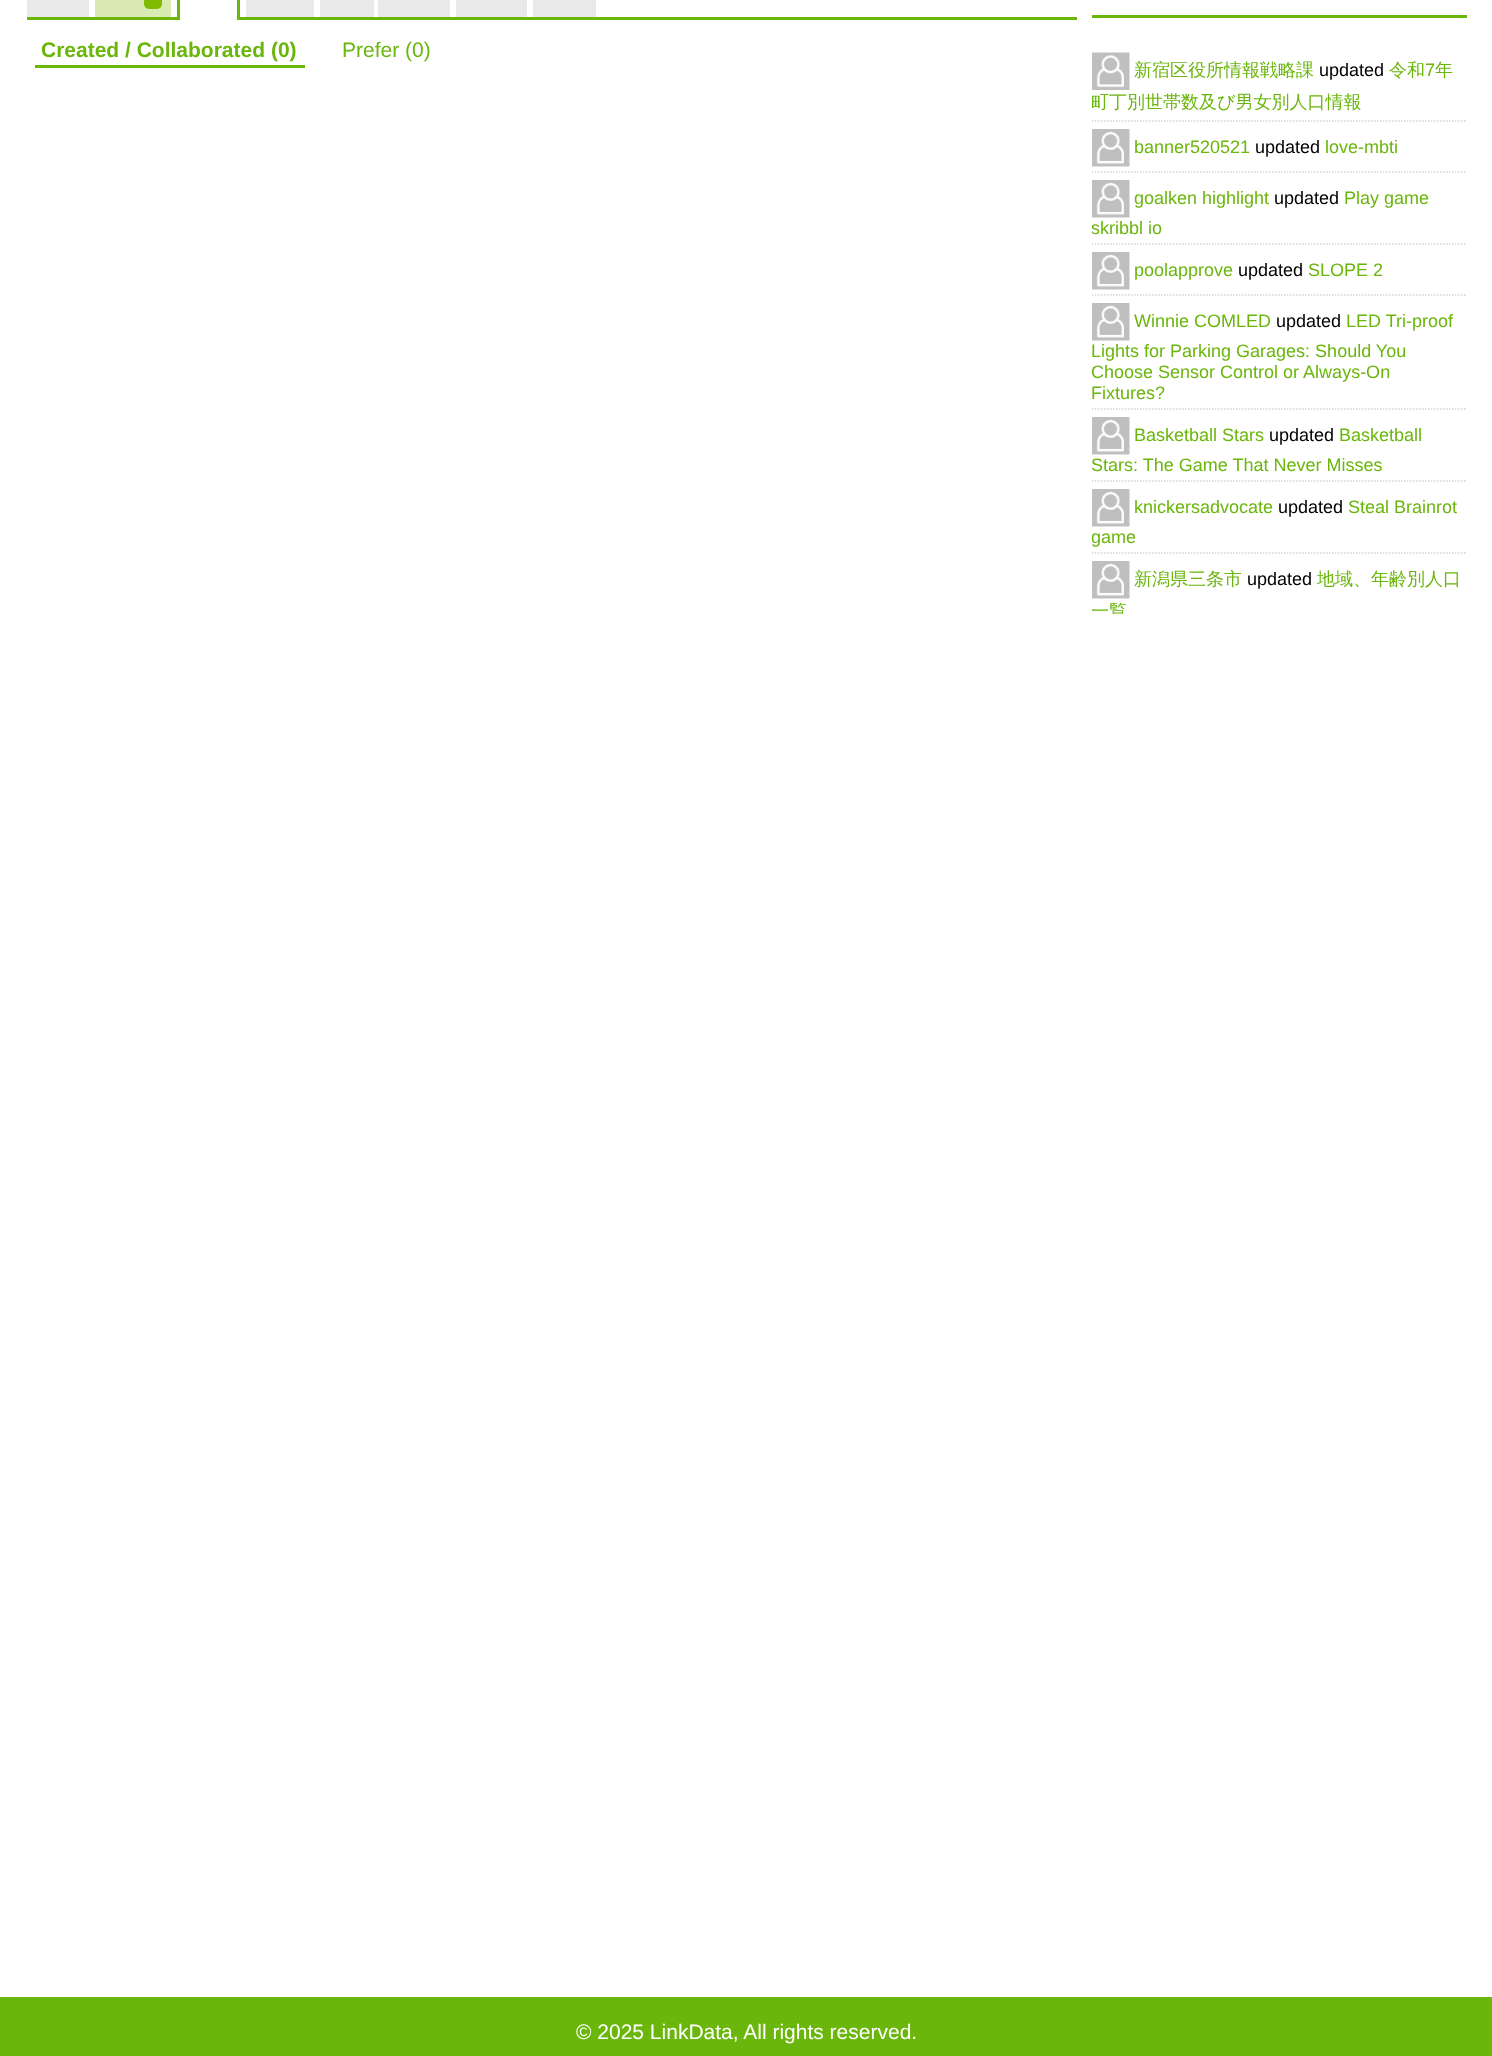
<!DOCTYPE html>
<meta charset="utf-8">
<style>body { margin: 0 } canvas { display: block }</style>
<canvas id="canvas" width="1492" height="2056"></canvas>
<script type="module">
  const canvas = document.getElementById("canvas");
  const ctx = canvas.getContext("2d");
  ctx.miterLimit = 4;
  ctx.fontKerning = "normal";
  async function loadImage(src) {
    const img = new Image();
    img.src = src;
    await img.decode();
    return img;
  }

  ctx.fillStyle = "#ffffff";
  ctx.fillRect(0, 0, 1492, 2056);
  ctx.fillStyle = "#6ab60b";
  ctx.fillRect(27, 17, 1050, 3);
  ctx.fillStyle = "#e9e9e9";
  ctx.fillRect(27, 0, 62, 17);
  ctx.fillStyle = "#d9ebb3";
  ctx.fillRect(95, 0, 76, 17);
  ctx.fillStyle = "#81bb00";
  ctx.beginPath();
  ctx.roundRect(144, -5, 18, 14, 5);
  ctx.fill();
  ctx.fillStyle = "#ffffff";
  ctx.fillRect(180, 17, 57, 3);
  ctx.fillStyle = "#6ab60b";
  ctx.beginPath();
  ctx.moveTo(182, -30);
  ctx.lineTo(236, -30);
  ctx.bezierCurveTo(238, -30, 240, -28, 240, -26);
  ctx.lineTo(240, 20);
  ctx.lineTo(177, 20);
  ctx.lineTo(177, -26);
  ctx.bezierCurveTo(177, -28, 179, -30, 182, -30);
  ctx.closePath();
  ctx.moveTo(182, -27);
  ctx.lineTo(236, -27);
  ctx.bezierCurveTo(236, -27, 237, -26, 237, -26);
  ctx.lineTo(237, 20);
  ctx.lineTo(180, 20);
  ctx.lineTo(180, -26);
  ctx.bezierCurveTo(180, -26, 181, -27, 182, -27);
  ctx.closePath();
  ctx.fill("evenodd");
  ctx.fillStyle = "#e9e9e9";
  ctx.fillRect(246, 0, 68, 17);
  ctx.fillRect(320, 0, 54, 17);
  ctx.fillRect(378, 0, 72, 17);
  ctx.fillRect(456, 0, 71, 17);
  ctx.fillRect(533, 0, 63, 17);
  ctx.fillStyle = "#6ab60b";
  ctx.fillRect(35, 65, 270, 3);
  ctx.font = "bold 21px Liberation Sans";
  ctx.fillText("Created / Collaborated (0)", 41, 57);
  ctx.font = "21px Liberation Sans";
  ctx.fillText("Prefer (0)", 342, 57);
  ctx.fillRect(1092, 15, 375, 3);
  ctx.beginPath();
  ctx.moveTo(1092, 121);
  ctx.lineTo(1467, 121);
  ctx.strokeStyle = "#d3d3d3";
  ctx.lineWidth = 1.5;
  ctx.setLineDash([1.5, 1.5]);
  ctx.stroke();
  ctx.drawImage(await loadImage("img1.png"), 1092, 52, 38, 38);
  ctx.font = "500 18px WenQuanYi Zen Hei";
  ctx.fillText("新宿区役所情報戦略課", 1134, 76);
  ctx.font = "18px Liberation Sans";
  ctx.fillStyle = "#000000";
  ctx.fillText("updated", 1319, 76);
  ctx.font = "500 18px WenQuanYi Zen Hei";
  ctx.fillStyle = "#6ab60b";
  ctx.fillText("令和", 1389, 76);
  ctx.font = "18px Liberation Sans";
  ctx.fillText("7", 1425, 76);
  ctx.font = "500 18px WenQuanYi Zen Hei";
  ctx.fillText("年", 1435, 76);
  ctx.fillText("町丁別世帯数及び男女別人口情報", 1091, 108);
  ctx.beginPath();
  ctx.moveTo(1092, 172);
  ctx.lineTo(1467, 172);
  ctx.stroke();
  ctx.drawImage(await loadImage("img2.png"), 1092, 129, 38, 38);
  ctx.font = "18px Liberation Sans";
  ctx.fillText("banner520521", 1134, 153);
  ctx.fillStyle = "#000000";
  ctx.fillText("updated", 1255, 153);
  ctx.fillStyle = "#6ab60b";
  ctx.fillText("love-mbti", 1325, 153);
  ctx.beginPath();
  ctx.moveTo(1092, 244);
  ctx.lineTo(1467, 244);
  ctx.stroke();
  ctx.drawImage(await loadImage("img2.png"), 1092, 180, 38, 38);
  ctx.fillText("goalken highlight", 1134, 204);
  ctx.fillStyle = "#000000";
  ctx.fillText("updated", 1274, 204);
  ctx.fillStyle = "#6ab60b";
  ctx.fillText("Play game", 1344, 204);
  ctx.fillText("skribbl io", 1091, 234);
  ctx.beginPath();
  ctx.moveTo(1092, 295);
  ctx.lineTo(1467, 295);
  ctx.stroke();
  ctx.drawImage(await loadImage("img2.png"), 1092, 252, 38, 38);
  ctx.fillText("poolapprove", 1134, 276);
  ctx.fillStyle = "#000000";
  ctx.fillText("updated", 1238, 276);
  ctx.fillStyle = "#6ab60b";
  ctx.fillText("SLOPE 2", 1308, 276);
  ctx.beginPath();
  ctx.moveTo(1092, 409);
  ctx.lineTo(1467, 409);
  ctx.stroke();
  ctx.drawImage(await loadImage("img2.png"), 1092, 303, 38, 38);
  ctx.fillText("Winnie COMLED", 1134, 327);
  ctx.fillStyle = "#000000";
  ctx.fillText("updated", 1276, 327);
  ctx.fillStyle = "#6ab60b";
  ctx.fillText("LED Tri-proof", 1346, 327);
  ctx.fillText("Lights for Parking Garages: Should You", 1091, 357);
  ctx.fillText("Choose Sensor Control or Always-On", 1091, 378);
  ctx.fillText("Fixtures?", 1091, 399);
  ctx.beginPath();
  ctx.moveTo(1092, 481);
  ctx.lineTo(1467, 481);
  ctx.stroke();
  ctx.drawImage(await loadImage("img2.png"), 1092, 417, 38, 38);
  ctx.fillText("Basketball Stars", 1134, 441);
  ctx.fillStyle = "#000000";
  ctx.fillText("updated", 1269, 441);
  ctx.fillStyle = "#6ab60b";
  ctx.fillText("Basketball", 1339, 441);
  ctx.fillText("Stars: The Game That Never Misses", 1091, 471);
  ctx.beginPath();
  ctx.moveTo(1092, 553);
  ctx.lineTo(1467, 553);
  ctx.stroke();
  ctx.drawImage(await loadImage("img2.png"), 1092, 489, 38, 38);
  ctx.fillText("knickersadvocate", 1134, 513);
  ctx.fillStyle = "#000000";
  ctx.fillText("updated", 1278, 513);
  ctx.fillStyle = "#6ab60b";
  ctx.fillText("Steal Brainrot", 1348, 513);
  ctx.fillText("game", 1091, 543);
  ctx.drawImage(await loadImage("img2.png"), 1092, 561, 38, 38);
  ctx.font = "500 18px WenQuanYi Zen Hei";
  ctx.fillText("新潟県三条市", 1134, 585);
  ctx.font = "18px Liberation Sans";
  ctx.fillStyle = "#000000";
  ctx.fillText("updated", 1247, 585);
  ctx.font = "500 18px WenQuanYi Zen Hei";
  ctx.fillStyle = "#6ab60b";
  ctx.fillText("地域、年齢別人口", 1317, 585);
  ctx.save();
  ctx.beginPath();
  ctx.rect(1092, 48, 375, 566);
  ctx.clip();
  ctx.fillText("一覧", 1091, 617);
  ctx.restore();
  ctx.fillRect(0, 1997, 1492, 59);
  ctx.font = "21px Liberation Sans";
  ctx.fillStyle = "#ffffff";
  ctx.fillText("© 2025 LinkData, All rights reserved.", 576, 2039);
</script>
